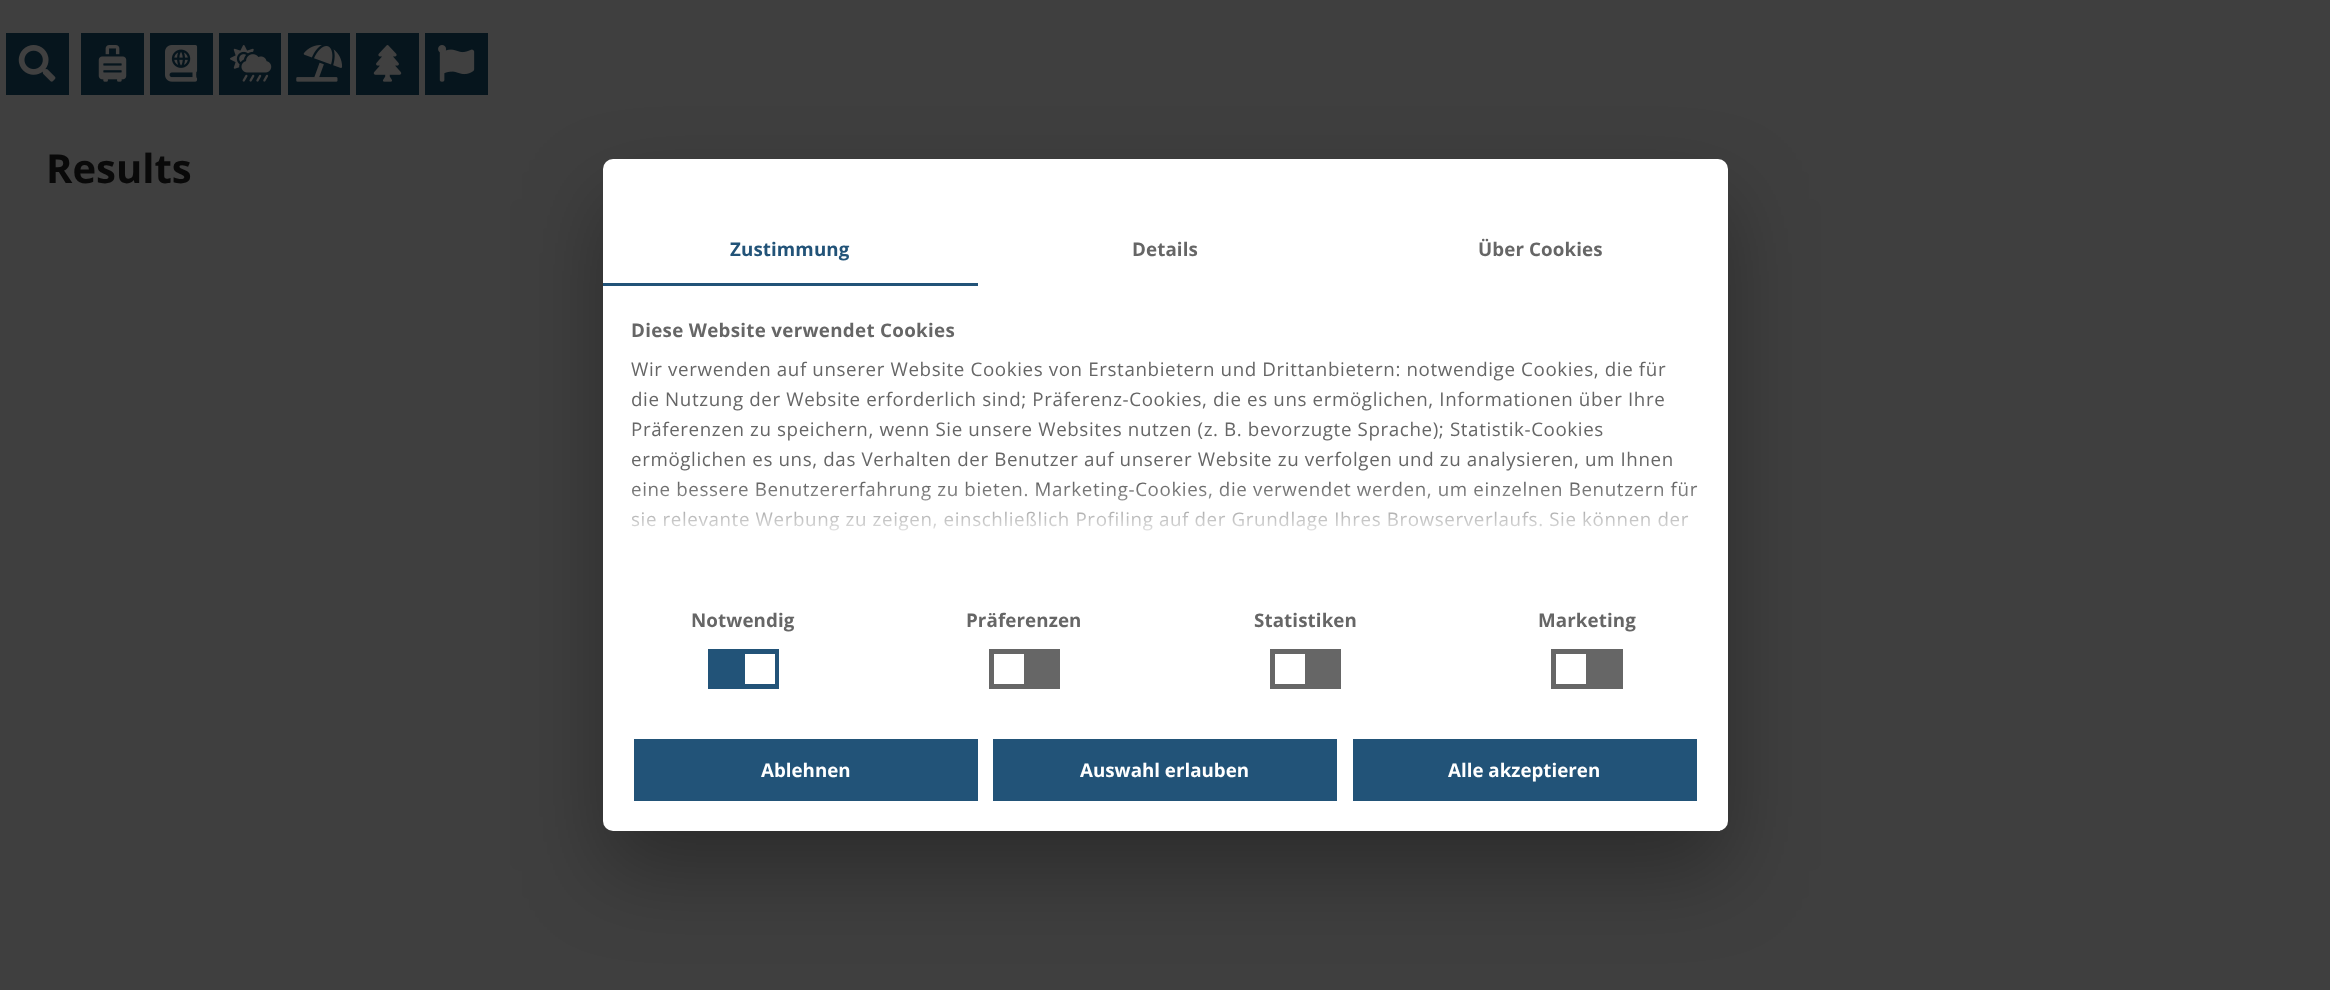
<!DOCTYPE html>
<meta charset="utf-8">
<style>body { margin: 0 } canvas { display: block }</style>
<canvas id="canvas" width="2330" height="990"></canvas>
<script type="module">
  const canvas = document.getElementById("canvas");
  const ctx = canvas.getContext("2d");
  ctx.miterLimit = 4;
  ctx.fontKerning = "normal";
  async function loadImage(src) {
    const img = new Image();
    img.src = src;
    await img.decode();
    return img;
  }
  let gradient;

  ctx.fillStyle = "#3f3f3f";
  ctx.fillRect(0, 0, 2330, 990);
  ctx.fillStyle = "#06151d";
  ctx.fillRect(6, 33, 63, 62);
  ctx.drawImage(await loadImage("img1.png"), 18, 45, 38, 37);
  ctx.fillRect(81, 33, 63, 62);
  ctx.drawImage(await loadImage("img2.png"), 98, 45, 29, 37);
  ctx.fillRect(150, 33, 63, 62);
  ctx.drawImage(await loadImage("img3.png"), 165, 45, 33, 37);
  ctx.fillRect(219, 33, 62, 62);
  ctx.drawImage(await loadImage("img4.png"), 230, 45, 42, 37);
  ctx.fillRect(288, 33, 62, 62);
  ctx.drawImage(await loadImage("img5.png"), 296, 45, 47, 37);
  ctx.fillRect(356, 33, 63, 62);
  ctx.drawImage(await loadImage("img6.png"), 373, 45, 29, 37);
  ctx.fillRect(425, 33, 63, 62);
  ctx.drawImage(await loadImage("img7.png"), 438, 45, 37, 37);
  ctx.font = "bold 40px Open Sans";
  ctx.fillStyle = "#090909";
  ctx.fillText("Results", 46, 183);
  ctx.fillStyle = "rgba(0, 0, 0, 0.3)";
  ctx.filter = "blur(42.5px)";
  ctx.beginPath();
  ctx.roundRect(603, 199, 1125, 672, 10);
  ctx.fill();
  ctx.filter = "none";
  ctx.fillStyle = "#ffffff";
  ctx.beginPath();
  ctx.roundRect(603, 159, 1125, 672, 10);
  ctx.fill();
  ctx.fillStyle = "#225378";
  ctx.fillRect(603, 283, 375, 3);
  ctx.letterSpacing = "0.1px";
  ctx.font = "bold 18.75px Open Sans";
  ctx.fillText("Zustimmung", 730, 256);
  ctx.fillStyle = "#666666";
  ctx.fillText("Details", 1132, 256);
  ctx.fillText("Über Cookies", 1478, 256);
  ctx.letterSpacing = "0.3px";
  ctx.fillText("Diese Website verwendet Cookies", 631, 337);
  ctx.letterSpacing = "0.62px";
  ctx.font = "18.75px Open Sans";
  ctx.fillText("Wir verwenden auf unserer Website Cookies von Erstanbietern und Drittanbietern: notwendige Cookies, die für", 631, 376);
  ctx.fillText("die Nutzung der Website erforderlich sind; Präferenz-Cookies, die es uns ermöglichen, Informationen über Ihre", 631, 406);
  ctx.fillText("Präferenzen zu speichern, wenn Sie unsere Websites nutzen (z. B. bevorzugte Sprache); Statistik-Cookies", 631, 436);
  ctx.fillText("ermöglichen es uns, das Verhalten der Benutzer auf unserer Website zu verfolgen und zu analysieren, um Ihnen", 631, 466);
  ctx.fillText("eine bessere Benutzererfahrung zu bieten. Marketing-Cookies, die verwendet werden, um einzelnen Benutzern für", 631, 496);
  ctx.fillText("sie relevante Werbung zu zeigen, einschließlich Profiling auf der Grundlage Ihres Browserverlaufs. Sie können der", 631, 526);
  gradient = ctx.createLinearGradient(1153, 577, 1153, 484);
  gradient.addColorStop(0, "#ffffff");
  gradient.addColorStop(0.5, "rgba(255, 255, 255, 0.8)");
  gradient.addColorStop(1, "rgba(255, 255, 255, 0)");
  ctx.fillStyle = gradient;
  ctx.fillRect(631, 485, 1066, 46);
  ctx.letterSpacing = "0.1px";
  ctx.font = "bold 18.75px Open Sans";
  ctx.fillStyle = "#666666";
  ctx.fillText("Notwendig", 691, 627);
  ctx.fillStyle = "#225378";
  ctx.fillRect(708, 649, 71, 40);
  ctx.fillStyle = "#ffffff";
  ctx.fillRect(745, 654, 30, 30);
  ctx.fillStyle = "#666666";
  ctx.fillText("Präferenzen", 966, 627);
  ctx.fillRect(989, 649, 71, 40);
  ctx.fillStyle = "#ffffff";
  ctx.fillRect(994, 654, 30, 30);
  ctx.fillStyle = "#666666";
  ctx.fillText("Statistiken", 1254, 627);
  ctx.fillRect(1270, 649, 71, 40);
  ctx.fillStyle = "#ffffff";
  ctx.fillRect(1275, 654, 30, 30);
  ctx.fillStyle = "#666666";
  ctx.fillText("Marketing", 1538, 627);
  ctx.fillRect(1551, 649, 72, 40);
  ctx.fillStyle = "#ffffff";
  ctx.fillRect(1556, 654, 30, 30);
  ctx.fillStyle = "#225378";
  ctx.fillRect(634, 739, 344, 62);
  ctx.letterSpacing = "0px";
  ctx.fillStyle = "#ffffff";
  ctx.fillText("Ablehnen", 761, 777);
  ctx.fillStyle = "#225378";
  ctx.fillRect(993, 739, 344, 62);
  ctx.fillStyle = "#ffffff";
  ctx.fillText("Auswahl erlauben", 1080, 777);
  ctx.fillStyle = "#225378";
  ctx.fillRect(1353, 739, 344, 62);
  ctx.fillStyle = "#ffffff";
  ctx.fillText("Alle akzeptieren", 1448, 777);
  ctx.fillRect(1718, 830, 2, 1);
</script>
